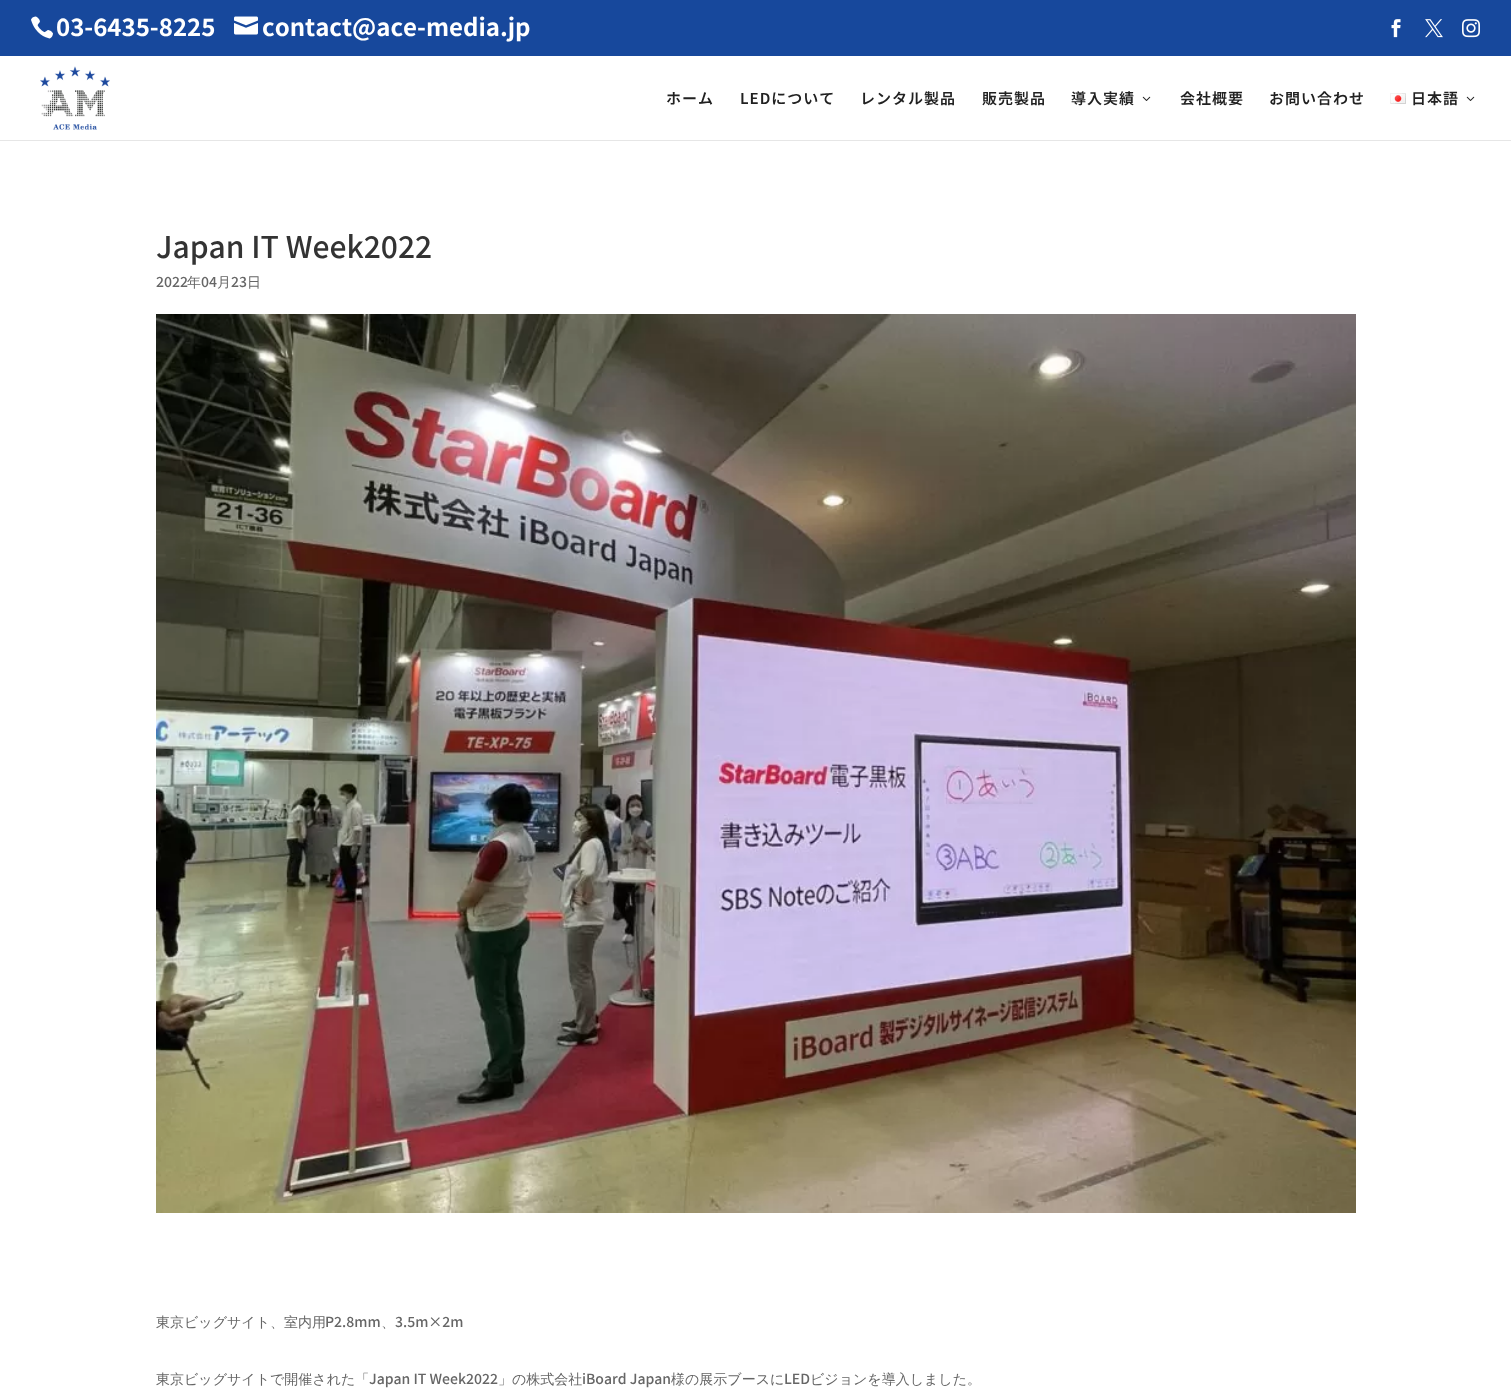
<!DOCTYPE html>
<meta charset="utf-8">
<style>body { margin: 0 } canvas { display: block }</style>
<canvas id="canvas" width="1511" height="1400"></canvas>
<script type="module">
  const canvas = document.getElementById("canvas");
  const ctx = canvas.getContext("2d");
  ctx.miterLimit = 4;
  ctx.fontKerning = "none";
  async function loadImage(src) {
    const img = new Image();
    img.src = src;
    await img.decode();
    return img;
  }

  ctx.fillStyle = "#ffffff";
  ctx.fillRect(0, 0, 1511, 1400);
  ctx.fillStyle = "#17489c";
  ctx.fillRect(0, 0, 1511, 56);
  ctx.drawImage(await loadImage("img1.png"), 31, 16, 22, 23);
  ctx.font = "100 24px 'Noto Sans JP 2'";
  ctx.fillStyle = "#ffffff";
  ctx.fillText("03-6435-8225", 56, 36);
  ctx.drawImage(await loadImage("img2.png"), 234, 16, 24, 19);
  ctx.fillText("contact@ace-media.jp", 262, 36);
  ctx.drawImage(await loadImage("img3.png"), 1391, 19, 10, 19);
  ctx.drawImage(await loadImage("img4.png"), 1425, 19, 18, 19);
  ctx.drawImage(await loadImage("img5.png"), 1462, 19, 18, 19);
  ctx.fillStyle = "#e6e6e6";
  ctx.fillRect(0, 140, 1511, 1);
  ctx.drawImage(await loadImage("img6.png"), 40, 66, 70, 64);
  ctx.letterSpacing = "1px";
  ctx.font = "600 15px Noto Sans JP";
  ctx.fillStyle = "#212121";
  ctx.fillText("ホーム", 666, 104);
  ctx.fillText("LEDについて", 740, 104);
  ctx.fillText("レンタル製品", 860, 104);
  ctx.fillText("販売製品", 982, 104);
  ctx.fillText("導入実績", 1071, 104);
  ctx.drawImage(await loadImage("img7.png"), 1142, 96, 9, 5);
  ctx.fillText("会社概要", 1180, 104);
  ctx.fillText("お問い合わせ", 1269, 104);
  ctx.drawImage(await loadImage("img8.png"), 1390, 93, 16, 11);
  ctx.fillText("日本語", 1411, 104);
  ctx.drawImage(await loadImage("img7.png"), 1466, 96, 9, 5);
  ctx.letterSpacing = "0px";
  ctx.font = "100 30px Noto Sans JP";
  ctx.fillStyle = "#333333";
  ctx.fillText("Japan IT Week2022", 156, 258);
  ctx.font = "100 14px Noto Sans JP";
  ctx.fillStyle = "#666666";
  ctx.fillText("2022", 156, 287);
  ctx.font = "500 14px WenQuanYi Zen Hei";
  ctx.fillText("年", 187, 287);
  ctx.font = "100 14px Noto Sans JP";
  ctx.fillText("04", 201, 287);
  ctx.font = "500 14px WenQuanYi Zen Hei";
  ctx.fillText("月", 217, 287);
  ctx.font = "100 14px Noto Sans JP";
  ctx.fillText("23", 231, 287);
  ctx.font = "500 14px WenQuanYi Zen Hei";
  ctx.fillText("日", 247, 287);
  ctx.drawImage(await loadImage("img9.png"), 156, 314, 1200, 899);
  ctx.fillText("東京ビッグサイト、室内用", 156, 1327);
  ctx.font = "100 14px Noto Sans JP";
  ctx.fillText("P2.8mm", 325, 1327);
  ctx.font = "500 14px WenQuanYi Zen Hei";
  ctx.fillText("、", 381, 1327);
  ctx.font = "100 14px Noto Sans JP";
  ctx.fillText("3.5m×2m", 395, 1327);
  ctx.font = "500 14px WenQuanYi Zen Hei";
  ctx.fillText("東京ビッグサイトで開催された「", 156, 1384);
  ctx.font = "100 14px Noto Sans JP";
  ctx.fillText("Japan IT Week2022", 369, 1384);
  ctx.font = "500 14px WenQuanYi Zen Hei";
  ctx.fillText("」の株式会社", 498, 1384);
  ctx.font = "100 14px Noto Sans JP";
  ctx.fillText("iBoard Japan", 582, 1384);
  ctx.font = "500 14px WenQuanYi Zen Hei";
  ctx.fillText("様の展示ブースに", 671, 1384);
  ctx.font = "100 14px Noto Sans JP";
  ctx.fillText("LED", 784, 1384);
  ctx.font = "500 14px WenQuanYi Zen Hei";
  ctx.fillText("ビジョンを導入しました。", 810, 1384);
</script>
